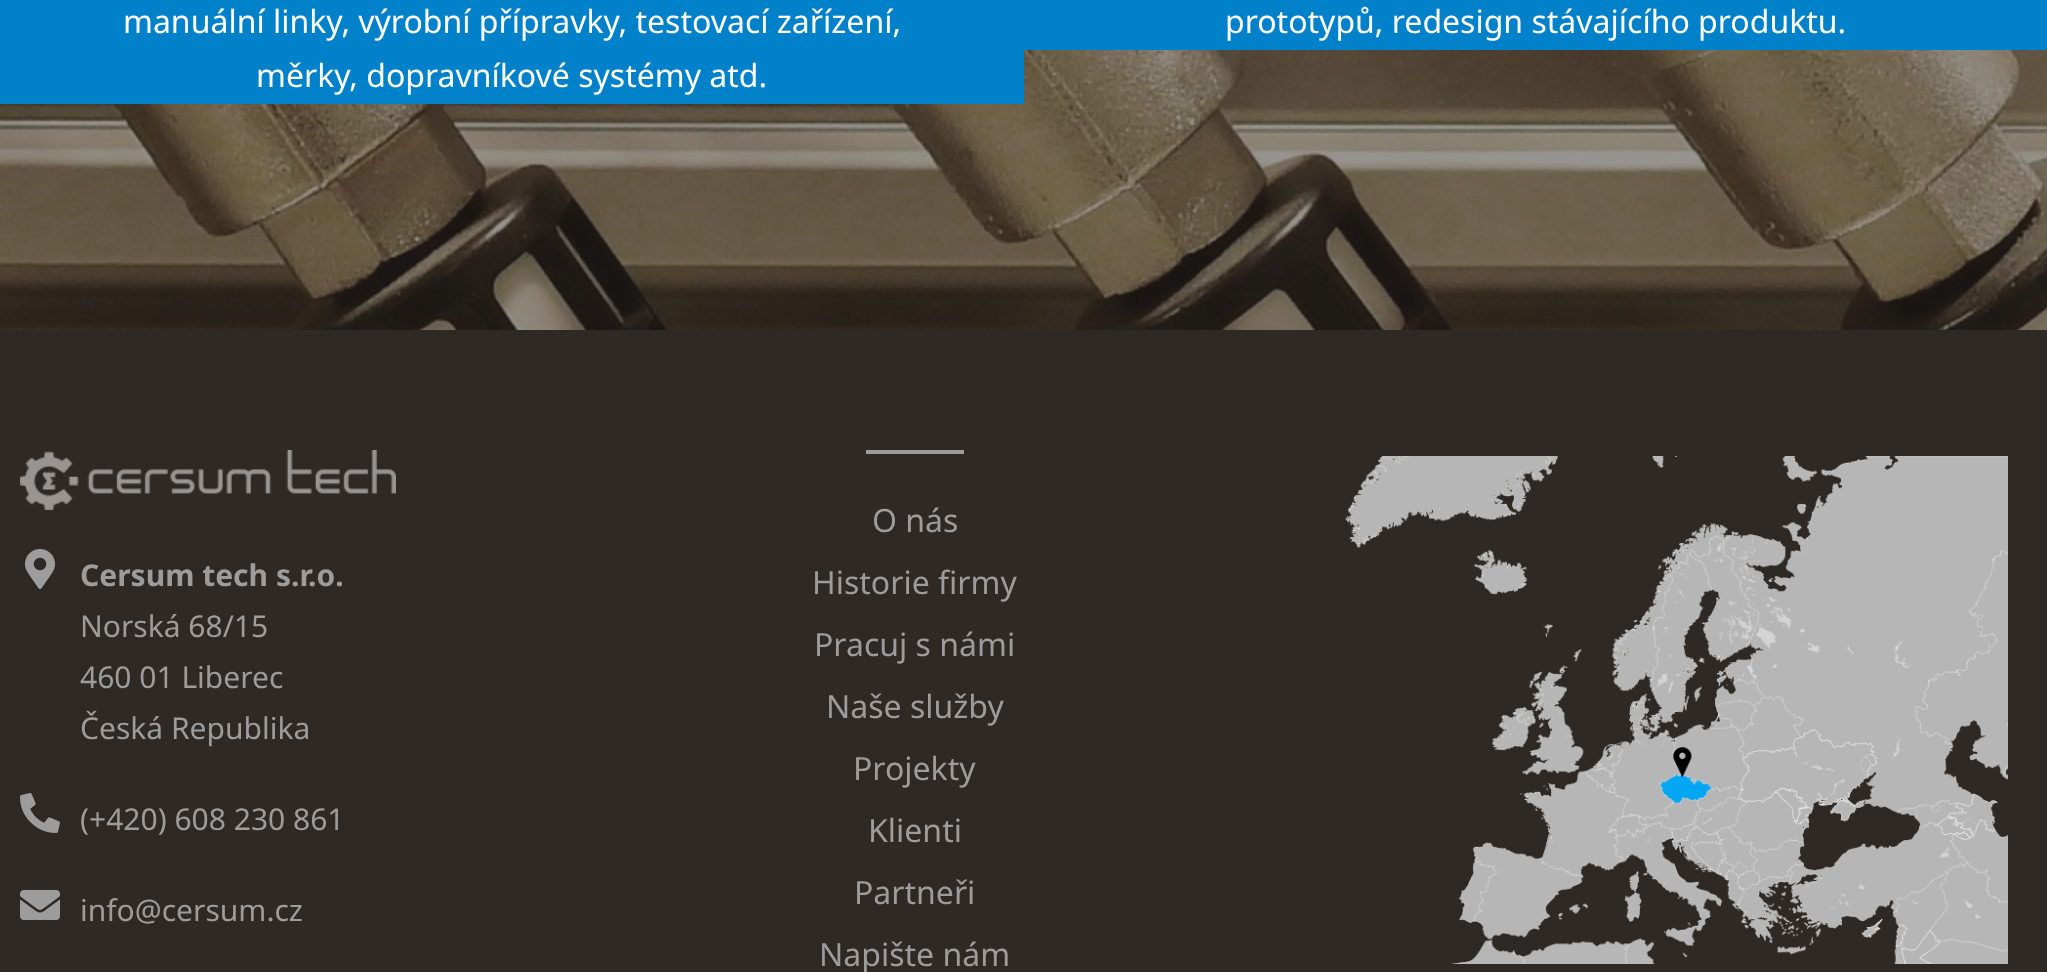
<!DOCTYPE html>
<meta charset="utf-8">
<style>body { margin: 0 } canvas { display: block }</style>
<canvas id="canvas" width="2047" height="972"></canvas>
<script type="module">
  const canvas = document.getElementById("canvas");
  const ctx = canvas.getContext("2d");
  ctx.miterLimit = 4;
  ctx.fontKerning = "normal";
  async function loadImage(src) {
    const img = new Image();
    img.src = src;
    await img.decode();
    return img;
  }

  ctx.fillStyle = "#ffffff";
  ctx.fillRect(0, 0, 2047, 972);
  ctx.drawImage(await loadImage("img1.png"), 0, 50, 2047, 280);
  ctx.fillStyle = "#0081c9";
  ctx.fillRect(0, 0, 1024, 104);
  ctx.font = "32px Noto Sans";
  ctx.fillStyle = "#ffffff";
  ctx.fillText("manuální linky, výrobní přípravky, testovací zařízení,", 123, 33);
  ctx.fillText("měrky, dopravníkové systémy atd.", 256, 87);
  ctx.fillStyle = "#0081c9";
  ctx.fillRect(1024, 0, 1023, 50);
  ctx.fillStyle = "#ffffff";
  ctx.fillText("prototypů, redesign stávajícího produktu.", 1225, 33);
  ctx.fillStyle = "#2e2925";
  ctx.fillRect(0, 330, 2047, 642);
  ctx.drawImage(await loadImage("img2.png"), 20, 450, 376, 60);
  ctx.drawImage(await loadImage("img3.png"), 25, 549, 30, 40);
  ctx.font = "bold 30px Noto Sans";
  ctx.fillStyle = "#9d9c9c";
  ctx.fillText("Cersum tech s.r.o.", 80, 586);
  ctx.font = "30px Noto Sans";
  ctx.fillText("Norská 68/15", 80, 637);
  ctx.fillText("460 01 Liberec", 80, 688);
  ctx.fillText("Česká Republika", 80, 739);
  ctx.drawImage(await loadImage("img4.png"), 20, 793, 40, 40);
  ctx.fillText("(+420) 608 230 861", 80, 830);
  ctx.drawImage(await loadImage("img5.png"), 20, 890, 40, 30);
  ctx.fillText("info@cersum.cz", 80, 921);
  ctx.fillRect(866, 450, 98, 4);
  ctx.font = "32px Noto Sans";
  ctx.fillText("O nás", 872, 532);
  ctx.fillText("Historie firmy", 812, 594);
  ctx.fillText("Pracuj s námi", 814, 656);
  ctx.fillText("Naše služby", 826, 718);
  ctx.fillText("Projekty", 853, 780);
  ctx.fillText("Klienti", 868, 842);
  ctx.fillText("Partneři", 854, 904);
  ctx.fillText("Napište nám", 819, 966);
  ctx.drawImage(await loadImage("img6.png"), 1345, 456, 663, 508);
</script>
